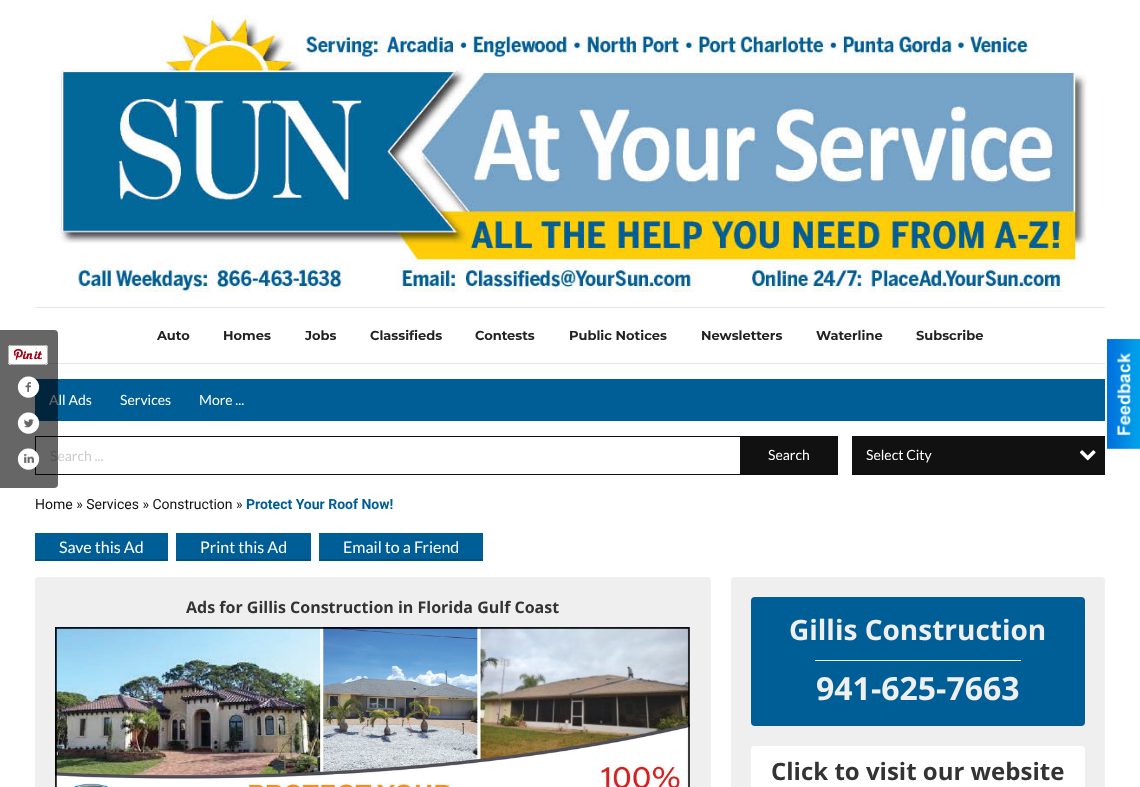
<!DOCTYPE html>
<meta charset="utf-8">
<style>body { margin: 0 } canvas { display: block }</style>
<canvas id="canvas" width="1140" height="787"></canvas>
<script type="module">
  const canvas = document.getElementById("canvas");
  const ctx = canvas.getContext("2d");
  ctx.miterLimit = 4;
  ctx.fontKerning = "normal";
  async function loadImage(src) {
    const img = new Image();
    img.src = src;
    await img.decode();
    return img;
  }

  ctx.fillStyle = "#ffffff";
  ctx.fillRect(0, 0, 1140, 787);
  ctx.fillStyle = "#e6e6e6";
  ctx.fillRect(35, 363, 1070, 1);
  ctx.fillStyle = "#005e96";
  ctx.fillRect(35, 379, 1070, 42);
  ctx.font = "14px Lato";
  ctx.fillStyle = "#ffffff";
  ctx.fillText("All Ads", 49, 405);
  ctx.strokeStyle = "#111111";
  ctx.strokeRect(35.5, 436.5, 802, 38);
  ctx.fillStyle = "#cccccc";
  ctx.fillText("Search ...", 50, 461);
  ctx.fillStyle = "rgba(0, 0, 0, 0.6)";
  ctx.beginPath();
  ctx.roundRect(0, 330, 58, 158, [0, 4, 4, 0]);
  ctx.fill();
  ctx.drawImage(await loadImage("img1.png"), 8, 345, 40, 20);
  ctx.drawImage(await loadImage("img2.png"), 17, 376, 23, 22);
  ctx.drawImage(await loadImage("img3.png"), 17, 412, 23, 22);
  ctx.drawImage(await loadImage("img4.png"), 17, 448, 23, 22);
  ctx.drawImage(await loadImage("img5.png"), 57, 15, 1030, 277);
  ctx.fillStyle = "#e6e6e6";
  ctx.fillRect(35, 307, 1070, 1);
  ctx.font = "bold 13px Montserrat";
  ctx.fillStyle = "#222222";
  ctx.fillText("Auto", 157, 340);
  ctx.fillText("Homes", 223, 340);
  ctx.fillText("Jobs", 305, 340);
  ctx.fillText("Classifieds", 370, 340);
  ctx.fillText("Contests", 475, 340);
  ctx.fillText("Public Notices", 569, 340);
  ctx.fillText("Newsletters", 701, 340);
  ctx.fillText("Waterline", 816, 340);
  ctx.fillText("Subscribe", 916, 340);
  ctx.font = "14px Lato";
  ctx.fillStyle = "#ffffff";
  ctx.fillText("Services", 120, 405);
  ctx.fillText("More ...", 199, 405);
  ctx.fillStyle = "#111111";
  ctx.fillRect(740, 437, 97, 36);
  ctx.fillStyle = "#0e0e0e";
  ctx.fillRect(740, 473, 98, 2);
  ctx.fillStyle = "#ffffff";
  ctx.fillText("Search", 768, 460);
  ctx.fillStyle = "#111111";
  ctx.fillRect(852, 436, 253, 37);
  ctx.fillStyle = "#0e0e0e";
  ctx.fillRect(852, 473, 253, 2);
  ctx.fillStyle = "#ffffff";
  ctx.fillText("Select City", 866, 460);
  ctx.drawImage(await loadImage("img6.png"), 1079, 450, 17, 11);
  ctx.font = "14px Roboto";
  ctx.fillStyle = "#111111";
  ctx.fillText("Home » Services » Construction »", 35, 509);
  ctx.font = "bold 14px Roboto";
  ctx.fillStyle = "#005e96";
  ctx.fillText("Protect Your Roof Now!", 246, 509);
  ctx.fillRect(35, 533, 133, 26);
  ctx.fillStyle = "#005080";
  ctx.fillRect(35, 559, 133, 2);
  ctx.font = "16px Lato";
  ctx.fillStyle = "#ffffff";
  ctx.fillText("Save this Ad", 59, 553);
  ctx.fillStyle = "#005e96";
  ctx.fillRect(176, 533, 135, 26);
  ctx.fillStyle = "#005080";
  ctx.fillRect(176, 559, 135, 2);
  ctx.fillStyle = "#ffffff";
  ctx.fillText("Print this Ad", 200, 553);
  ctx.fillStyle = "#005e96";
  ctx.fillRect(319, 533, 164, 26);
  ctx.fillStyle = "#005080";
  ctx.fillRect(319, 559, 164, 2);
  ctx.fillStyle = "#ffffff";
  ctx.fillText("Email to a Friend", 343, 553);
  ctx.fillStyle = "#efefef";
  ctx.beginPath();
  ctx.roundRect(35, 577, 676, 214, 4);
  ctx.fill();
  ctx.font = "bold 16px Open Sans";
  ctx.fillStyle = "#333333";
  ctx.fillText("Ads for Gillis Construction in Florida Gulf Coast", 186, 613);
  ctx.drawImage(await loadImage("img7.png"), 55, 627, 635, 160);
  ctx.fillStyle = "#efefef";
  ctx.beginPath();
  ctx.roundRect(731, 577, 374, 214, 4);
  ctx.fill();
  ctx.fillStyle = "#005e96";
  ctx.beginPath();
  ctx.roundRect(751, 597, 334, 129, 4);
  ctx.fill();
  ctx.font = "bold 28px Open Sans";
  ctx.fillStyle = "#efefef";
  ctx.fillText("Gillis Construction", 789, 640);
  ctx.fillRect(815, 660, 206, 1);
  ctx.font = "bold 32px Open Sans";
  ctx.fillText("941-625-7663", 816, 700);
  ctx.fillStyle = "#ffffff";
  ctx.beginPath();
  ctx.roundRect(751, 746, 334, 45, 4);
  ctx.fill();
  ctx.font = "bold 24px Open Sans";
  ctx.fillStyle = "#333333";
  ctx.fillText("Click to visit our website", 771, 780);
  ctx.drawImage(await loadImage("img8.png"), 1107, 339, 33, 110);
</script>
